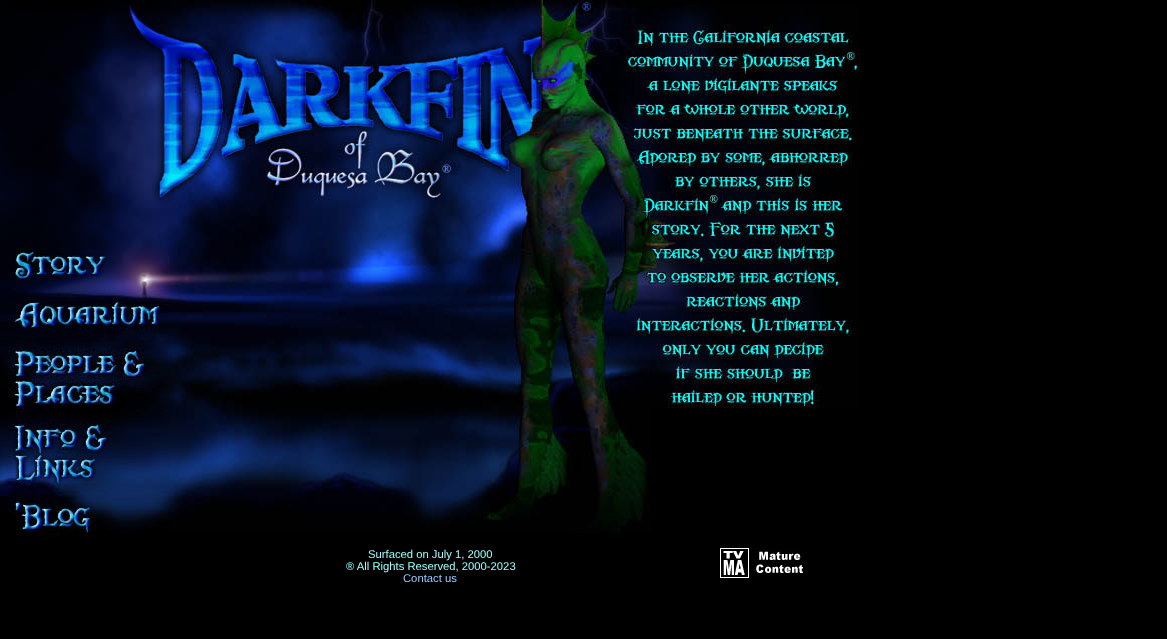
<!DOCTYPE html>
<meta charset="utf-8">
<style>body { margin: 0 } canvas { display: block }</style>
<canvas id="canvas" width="1167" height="639"></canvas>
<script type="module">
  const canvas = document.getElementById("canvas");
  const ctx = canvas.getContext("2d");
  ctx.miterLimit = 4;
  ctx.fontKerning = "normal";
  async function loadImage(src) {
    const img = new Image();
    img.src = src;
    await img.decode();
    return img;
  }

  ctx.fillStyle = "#000000";
  ctx.fillRect(0, 0, 1167, 639);
  ctx.drawImage(await loadImage("img1.png"), 0, 0, 170, 240);
  ctx.drawImage(await loadImage("img2.png"), 0, 240, 170, 50);
  ctx.drawImage(await loadImage("img3.png"), 0, 290, 170, 50);
  ctx.drawImage(await loadImage("img4.png"), 0, 340, 170, 75);
  ctx.drawImage(await loadImage("img5.png"), 0, 415, 170, 75);
  ctx.drawImage(await loadImage("img6.png"), 0, 490, 170, 48);
  ctx.drawImage(await loadImage("img7.png"), 170, 0, 482, 533);
  ctx.drawImage(await loadImage("img8.png"), 652, 4, 208, 404);
  ctx.font = "11.25px Liberation Sans";
  ctx.fillStyle = "#99ffff";
  ctx.fillText("Surfaced on July 1, 2000", 368, 558);
  ctx.fillText("® All Rights Reserved, 2000-2023", 346, 570);
  ctx.fillStyle = "#99ccff";
  ctx.fillText("Contact us", 403, 582);
  ctx.drawImage(await loadImage("img9.png"), 720, 548, 83, 30);
</script>
